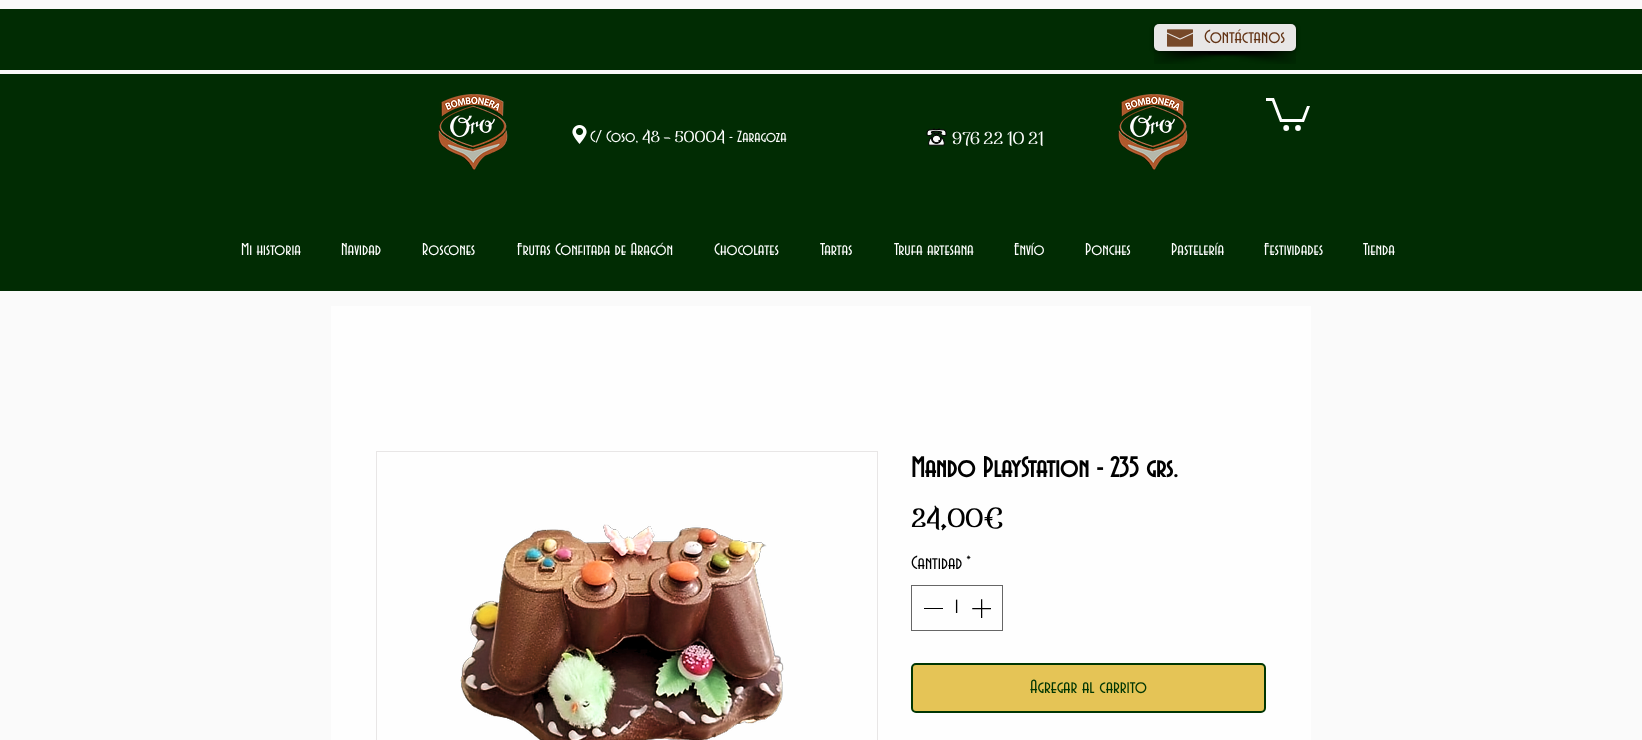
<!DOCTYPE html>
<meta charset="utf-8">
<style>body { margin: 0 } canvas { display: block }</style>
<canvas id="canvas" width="1642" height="740"></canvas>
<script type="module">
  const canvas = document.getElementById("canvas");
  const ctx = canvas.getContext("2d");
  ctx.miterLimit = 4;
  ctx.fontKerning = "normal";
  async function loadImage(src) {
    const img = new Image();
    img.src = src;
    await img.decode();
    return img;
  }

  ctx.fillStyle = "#fafafa";
  ctx.fillRect(0, 0, 1642, 740);
  ctx.fillStyle = "#012c03";
  ctx.fillRect(0, 9, 1642, 61);
  ctx.drawImage(await loadImage("img2.png"), 1154, 51, 125, 13);
  ctx.drawImage(await loadImage("img3.png"), 1208, 51, 88, 13);
  ctx.fillStyle = "rgba(0, 0, 0, 0.6)";
  ctx.filter = "blur(2px)";
  ctx.beginPath();
  ctx.roundRect(1154, 25, 142, 27, 5);
  ctx.fill();
  ctx.filter = "none";
  ctx.fillStyle = "#e8e6e6";
  ctx.beginPath();
  ctx.roundRect(1154, 24, 142, 27, 5);
  ctx.fill();
  ctx.drawImage(await loadImage("img1.png"), 1167, 29, 26, 18);
  ctx.font = "20px 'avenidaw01'";
  ctx.fillStyle = "#633315";
  ctx.fillText("Contáctanos", 1204, 43);
  ctx.fillStyle = "#012c03";
  ctx.fillRect(0, 74, 1642, 217);
  ctx.drawImage(await loadImage("img4.png"), 438, 93, 70, 77);
  ctx.drawImage(await loadImage("img4.png"), 1118, 93, 70, 77);
  ctx.fillStyle = "#ffffff";
  ctx.beginPath();
  ctx.moveTo(1310, 106);
  ctx.lineTo(1304, 122);
  ctx.lineTo(1280, 122);
  ctx.lineTo(1272, 101);
  ctx.lineTo(1266, 101);
  ctx.lineTo(1266, 98);
  ctx.lineTo(1274, 98);
  ctx.lineTo(1282, 119);
  ctx.lineTo(1302, 119);
  ctx.lineTo(1307, 106);
  ctx.fill();
  ctx.beginPath();
  ctx.arc(1298, 128, 2.9, 0, Math.PI * 2);
  ctx.fill();
  ctx.beginPath();
  ctx.arc(1286.2, 128, 2.9, 0, Math.PI * 2);
  ctx.fill();
  ctx.drawImage(await loadImage("img5.png"), 572, 125, 15, 19);
  ctx.font = "17px 'avenidaw01'";
  ctx.fillText("C/ Coso,", 590, 142);
  ctx.font = "11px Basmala";
  ctx.fillText("48 - 50004", 642, 142);
  ctx.font = "17px 'avenidaw01'";
  ctx.fillText("- Zaragoza", 729, 142);
  ctx.drawImage(await loadImage("img6.png"), 926, 128, 21, 18);
  ctx.font = "12px Basmala";
  ctx.fillText("976 22 10 21", 952, 144);
  ctx.font = "18px 'avenidaw01'";
  ctx.fillText("Mi historia", 241, 255);
  ctx.fillText("Navidad", 341, 255);
  ctx.fillText("Roscones", 422, 255);
  ctx.fillText("Frutas Confitada de Aragón", 517, 255);
  ctx.fillText("Chocolates", 714, 255);
  ctx.fillText("Tartas", 820, 255);
  ctx.fillText("Trufa artesana", 894, 255);
  ctx.fillText("Envío", 1014, 255);
  ctx.fillText("Ponches", 1085, 255);
  ctx.fillText("Pastelería", 1171, 255);
  ctx.fillText("Festividades", 1264, 255);
  ctx.fillText("Tienda", 1363, 255);
  ctx.fillStyle = "#fefefe";
  ctx.fillRect(331, 306, 980, 434);
  ctx.strokeStyle = "#e8e6e6";
  ctx.strokeRect(376.5, 451.5, 501, 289);
  ctx.drawImage(await loadImage("img7.png"), 460, 524, 324, 216);
  ctx.font = "bold 30px 'avenidaw01'";
  ctx.fillStyle = "#000000";
  ctx.fillText("Mando PlayStation - 235 grs.", 911, 477);
  ctx.font = "bold 18px Basmala";
  ctx.fillText("24,00€", 911, 527);
  ctx.font = "20px 'avenidaw01'";
  ctx.fillText("Cantidad", 911, 569);
  ctx.fillText("*", 966, 569);
  ctx.strokeStyle = "#666666";
  ctx.strokeRect(911.5, 585.5, 91, 45);
  ctx.fillRect(924, 608, 19, 1);
  ctx.fillText("1", 955, 613);
  ctx.drawImage(await loadImage("img8.png"), 972, 599, 19, 19);
  ctx.fillStyle = "#e5c456";
  ctx.beginPath();
  ctx.roundRect(912, 664, 353, 48, 4);
  ctx.fill();
  ctx.strokeStyle = "#003603";
  ctx.lineWidth = 2;
  ctx.stroke();
  ctx.fillStyle = "#003603";
  ctx.fillText("Agregar al carrito", 1030, 693);
</script>
